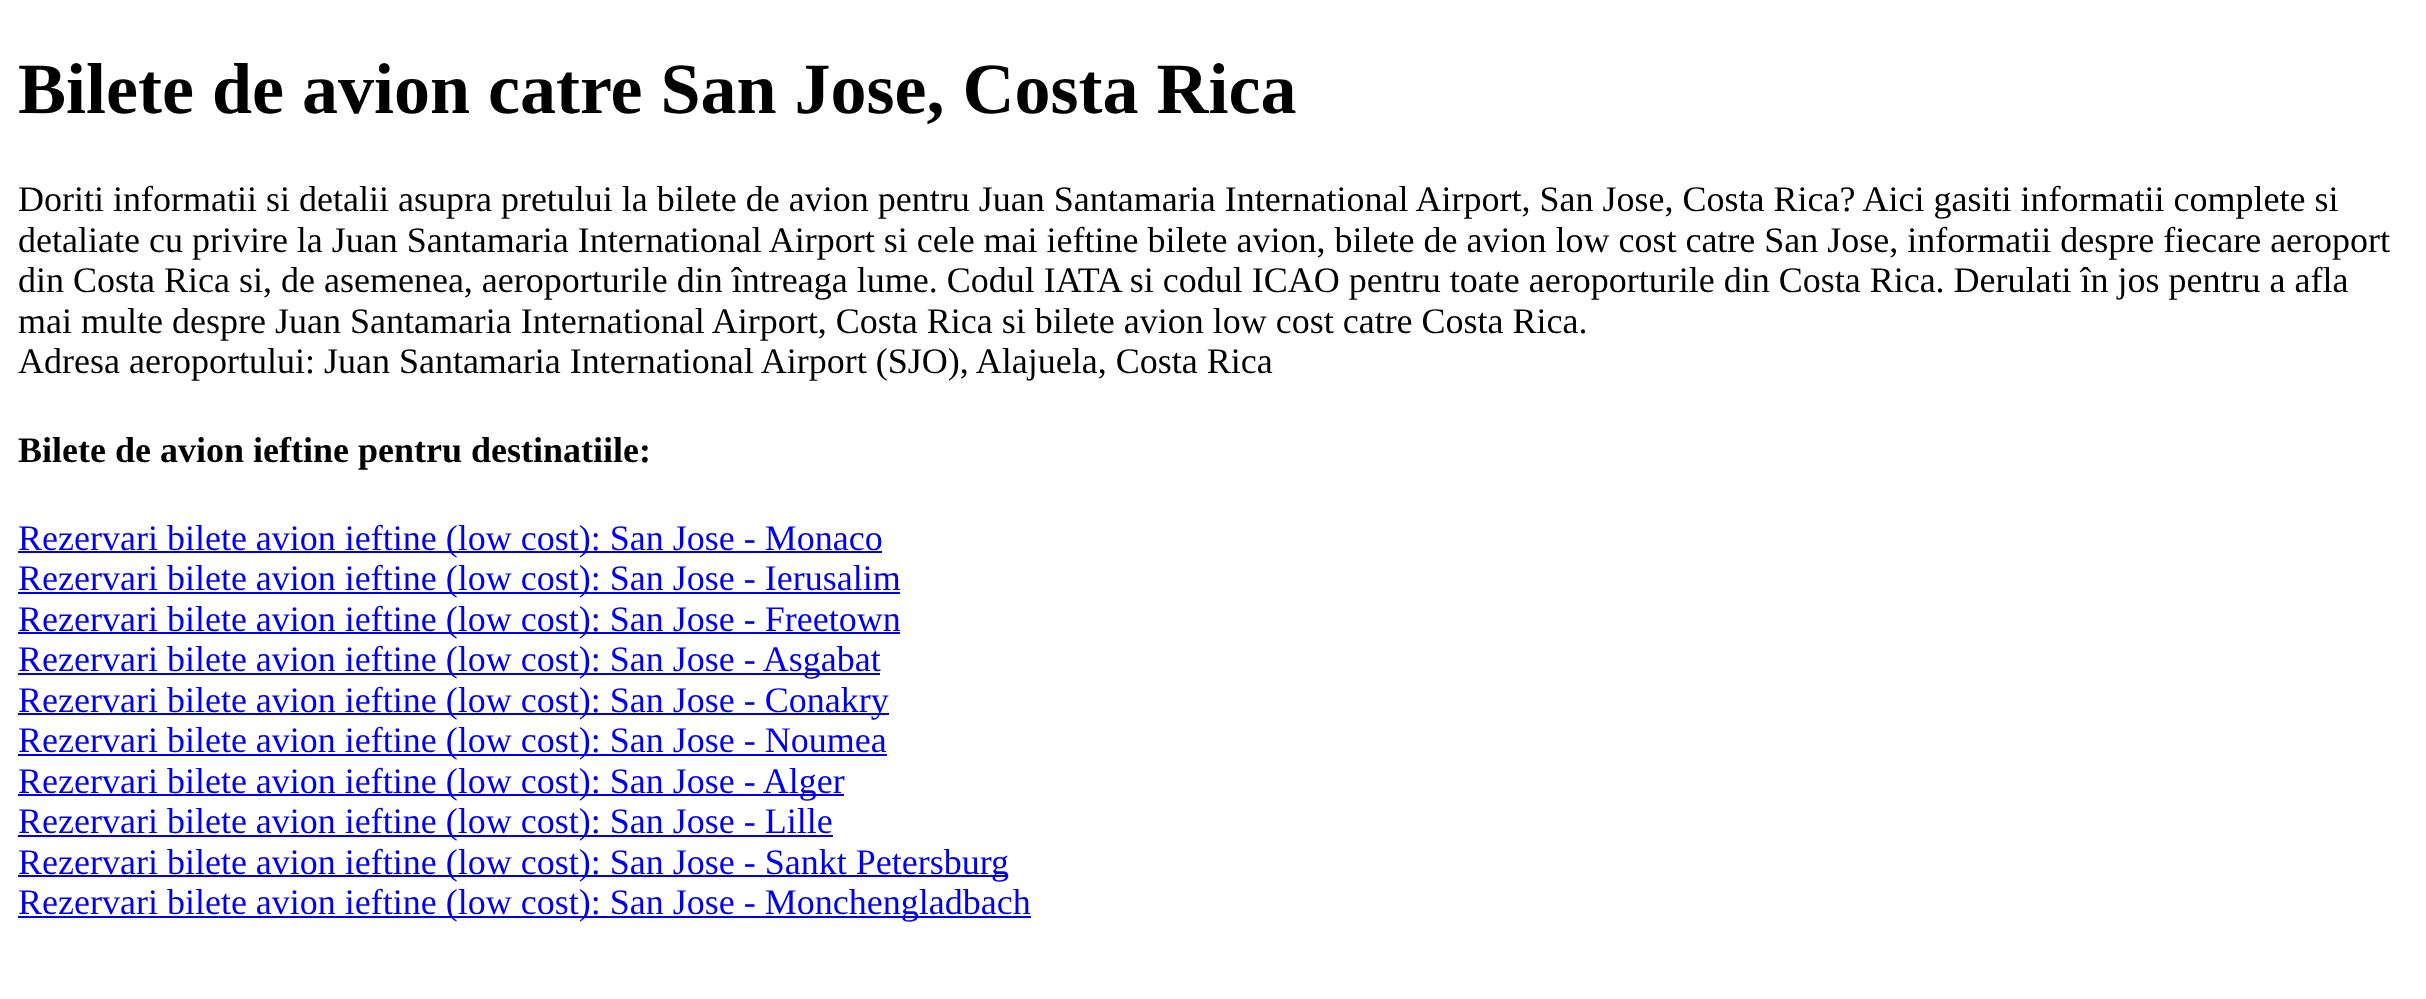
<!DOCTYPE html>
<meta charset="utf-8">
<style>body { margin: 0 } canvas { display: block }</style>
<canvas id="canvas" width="2426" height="999"></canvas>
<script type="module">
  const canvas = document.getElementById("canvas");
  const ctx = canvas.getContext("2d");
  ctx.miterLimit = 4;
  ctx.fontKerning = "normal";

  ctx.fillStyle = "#ffffff";
  ctx.fillRect(0, 0, 2426, 999);
  ctx.font = "bold 72px Liberation Serif";
  ctx.fillStyle = "#000000";
  ctx.fillText("Bilete de avion catre San Jose, Costa Rica", 18, 113);
  ctx.font = "36px Liberation Serif";
  ctx.fillText("Doriti informatii si detalii asupra pretului la bilete de avion pentru Juan Santamaria International Airport, San Jose, Costa Rica? Aici gasiti informatii complete si", 18, 211);
  ctx.fillText("detaliate cu privire la Juan Santamaria International Airport si cele mai ieftine bilete avion, bilete de avion low cost catre San Jose, informatii despre fiecare aeroport", 18, 252);
  ctx.fillText("din Costa Rica si, de asemenea, aeroporturile din întreaga lume. Codul IATA si codul ICAO pentru toate aeroporturile din Costa Rica. Derulati în jos pentru a afla", 18, 292);
  ctx.fillText("mai multe despre Juan Santamaria International Airport, Costa Rica si bilete avion low cost catre Costa Rica.", 18, 333);
  ctx.fillText("Adresa aeroportului: Juan Santamaria International Airport (SJO), Alajuela, Costa Rica", 18, 373);
  ctx.font = "bold 36px Liberation Serif";
  ctx.fillText("Bilete de avion ieftine pentru destinatiile:", 18, 462);
  ctx.fillStyle = "#0000ee";
  ctx.fillRect(18, 551, 864, 2);
  ctx.font = "36px Liberation Serif";
  ctx.fillText("Rezervari bilete avion ieftine (low cost): San Jose - Monaco", 18, 550);
  ctx.fillRect(18, 592, 882, 2);
  ctx.fillText("Rezervari bilete avion ieftine (low cost): San Jose - Ierusalim", 18, 590);
  ctx.fillRect(18, 632, 882, 2);
  ctx.fillText("Rezervari bilete avion ieftine (low cost): San Jose - Freetown", 18, 631);
  ctx.fillRect(18, 673, 862, 2);
  ctx.fillText("Rezervari bilete avion ieftine (low cost): San Jose - Asgabat", 18, 671);
  ctx.fillRect(18, 713, 871, 2);
  ctx.fillText("Rezervari bilete avion ieftine (low cost): San Jose - Conakry", 18, 712);
  ctx.fillRect(18, 754, 869, 2);
  ctx.fillText("Rezervari bilete avion ieftine (low cost): San Jose - Noumea", 18, 752);
  ctx.fillRect(18, 794, 826, 2);
  ctx.fillText("Rezervari bilete avion ieftine (low cost): San Jose - Alger", 18, 793);
  ctx.fillRect(18, 835, 815, 2);
  ctx.fillText("Rezervari bilete avion ieftine (low cost): San Jose - Lille", 18, 833);
  ctx.fillRect(18, 875, 990, 2);
  ctx.fillText("Rezervari bilete avion ieftine (low cost): San Jose - Sankt Petersburg", 18, 874);
  ctx.fillRect(18, 916, 1013, 2);
  ctx.fillText("Rezervari bilete avion ieftine (low cost): San Jose - Monchengladbach", 18, 914);
</script>
